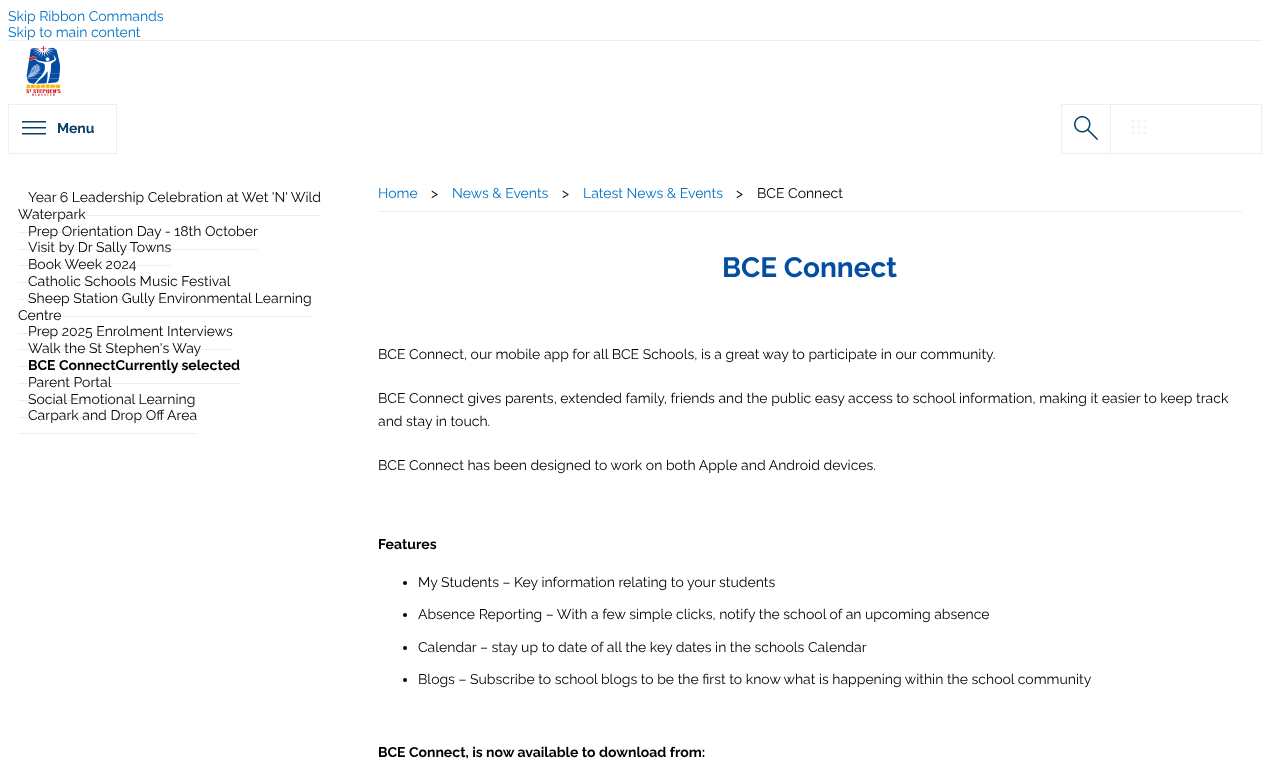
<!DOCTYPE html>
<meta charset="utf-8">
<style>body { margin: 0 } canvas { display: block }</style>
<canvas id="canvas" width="1270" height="765"></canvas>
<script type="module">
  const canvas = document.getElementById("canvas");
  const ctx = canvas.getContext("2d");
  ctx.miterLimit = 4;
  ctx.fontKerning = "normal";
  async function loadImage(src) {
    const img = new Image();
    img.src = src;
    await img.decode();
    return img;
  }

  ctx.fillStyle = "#ffffff";
  ctx.fillRect(0, 0, 1270, 765);
  ctx.font = "14px Raleway";
  ctx.fillStyle = "#0072c6";
  ctx.fillText("Skip Ribbon Commands", 8, 21);
  ctx.fillText("Skip to main content", 8, 37);
  ctx.fillStyle = "#eeeeee";
  ctx.fillRect(8, 40, 1254, 1);
  ctx.drawImage(await loadImage("img1.png"), 14, 40, 59, 56);
  ctx.strokeStyle = "#eeeeee";
  ctx.strokeRect(8.5, 104.5, 108, 49);
  ctx.drawImage(await loadImage("img2.png"), 22, 121, 24, 14);
  ctx.font = "bold 14px Raleway";
  ctx.fillStyle = "#054166";
  ctx.fillText("Menu", 57, 133);
  ctx.strokeRect(1110.5, 104.5, 151, 49);
  ctx.strokeRect(1061.5, 104.5, 49, 49);
  ctx.drawImage(await loadImage("img3.png"), 1074, 116, 24, 24);
  ctx.drawImage(await loadImage("img4.png"), 1131, 119, 16, 16);
  ctx.font = "14px Raleway";
  ctx.fillStyle = "#000000";
  ctx.fillText("Year 6 Leadership Celebration at Wet 'N' Wild", 28, 202);
  ctx.fillStyle = "#eeeeee";
  ctx.fillRect(18, 215, 303, 1);
  ctx.fillStyle = "#000000";
  ctx.fillText("Waterpark", 18, 219);
  ctx.fillStyle = "#eeeeee";
  ctx.fillRect(18, 232, 68, 1);
  ctx.fillStyle = "#000000";
  ctx.fillText("Prep Orientation Day - 18th October", 28, 236);
  ctx.fillStyle = "#eeeeee";
  ctx.fillRect(18, 249, 240, 1);
  ctx.fillStyle = "#000000";
  ctx.fillText("Visit by Dr Sally Towns", 28, 252);
  ctx.fillStyle = "#eeeeee";
  ctx.fillRect(18, 265, 153, 1);
  ctx.fillStyle = "#000000";
  ctx.fillText("Book Week 2024", 28, 269);
  ctx.fillStyle = "#eeeeee";
  ctx.fillRect(18, 282, 118, 1);
  ctx.fillStyle = "#000000";
  ctx.fillText("Catholic Schools Music Festival", 28, 286);
  ctx.fillStyle = "#eeeeee";
  ctx.fillRect(18, 299, 213, 1);
  ctx.fillStyle = "#000000";
  ctx.fillText("Sheep Station Gully Environmental Learning", 28, 303);
  ctx.fillStyle = "#eeeeee";
  ctx.fillRect(18, 316, 294, 1);
  ctx.fillStyle = "#000000";
  ctx.fillText("Centre", 18, 320);
  ctx.fillStyle = "#eeeeee";
  ctx.fillRect(18, 333, 44, 1);
  ctx.fillStyle = "#000000";
  ctx.fillText("Prep 2025 Enrolment Interviews", 28, 336);
  ctx.fillStyle = "#eeeeee";
  ctx.fillRect(18, 349, 215, 1);
  ctx.fillStyle = "#000000";
  ctx.fillText("Walk the St Stephen's Way", 28, 353);
  ctx.fillStyle = "#eeeeee";
  ctx.fillRect(18, 366, 183, 1);
  ctx.font = "bold 14px Raleway";
  ctx.fillStyle = "#000000";
  ctx.fillText("BCE ConnectCurrently selected", 28, 370);
  ctx.fillStyle = "#eeeeee";
  ctx.fillRect(18, 383, 222, 1);
  ctx.font = "14px Raleway";
  ctx.fillStyle = "#000000";
  ctx.fillText("Parent Portal", 28, 387);
  ctx.fillStyle = "#eeeeee";
  ctx.fillRect(18, 400, 93, 1);
  ctx.fillStyle = "#000000";
  ctx.fillText("Social Emotional Learning", 28, 404);
  ctx.fillStyle = "#eeeeee";
  ctx.fillRect(18, 417, 177, 1);
  ctx.fillStyle = "#000000";
  ctx.fillText("Carpark and Drop Off Area", 28, 420);
  ctx.fillStyle = "#eeeeee";
  ctx.fillRect(18, 433, 179, 1);
  ctx.fillRect(378, 211, 864, 1);
  ctx.fillStyle = "#0072c6";
  ctx.fillText("Home", 378, 198);
  ctx.fillStyle = "#000000";
  ctx.fillText(">", 431, 198);
  ctx.fillStyle = "#0072c6";
  ctx.fillText("News & Events", 452, 198);
  ctx.fillStyle = "#000000";
  ctx.fillText(">", 562, 198);
  ctx.fillStyle = "#0072c6";
  ctx.fillText("Latest News & Events", 583, 198);
  ctx.fillStyle = "#000000";
  ctx.fillText(">", 736, 198);
  ctx.fillText("BCE Connect", 757, 198);
  ctx.font = "bold 28px Raleway";
  ctx.fillStyle = "#034ea2";
  ctx.fillText("BCE Connect", 722, 277);
  ctx.font = "14px Raleway";
  ctx.fillStyle = "#000000";
  ctx.fillText("BCE Connect, our mobile app for all BCE Schools, is a great way to participate in our community.", 378, 359);
  ctx.fillText("BCE Connect gives parents, extended family, friends and the public easy access to school information, making it easier to keep track", 378, 403);
  ctx.fillText("and stay in touch.", 378, 426);
  ctx.fillText("BCE Connect has been designed to work on both Apple and Android devices.", 378, 470);
  ctx.font = "bold 14px Raleway";
  ctx.fillText("Features", 378, 549);
  ctx.beginPath();
  ctx.arc(405, 583, 2, 0, Math.PI * 2);
  ctx.fill();
  ctx.font = "14px Raleway";
  ctx.fillText("My Students – Key information relating to your students", 418, 587);
  ctx.beginPath();
  ctx.arc(405, 615, 2, 0, Math.PI * 2);
  ctx.fill();
  ctx.fillText("Absence Reporting – With a few simple clicks, notify the school of an upcoming absence", 418, 619);
  ctx.beginPath();
  ctx.arc(405, 648, 2, 0, Math.PI * 2);
  ctx.fill();
  ctx.fillText("Calendar – stay up to date of all the key dates in the schools Calendar", 418, 652);
  ctx.beginPath();
  ctx.arc(405, 680, 2, 0, Math.PI * 2);
  ctx.fill();
  ctx.fillText("Blogs – Subscribe to school blogs to be the first to know what is happening within the school community", 418, 684);
  ctx.font = "bold 14px Raleway";
  ctx.fillText("BCE Connect, is now available to download from:", 378, 757);
</script>
